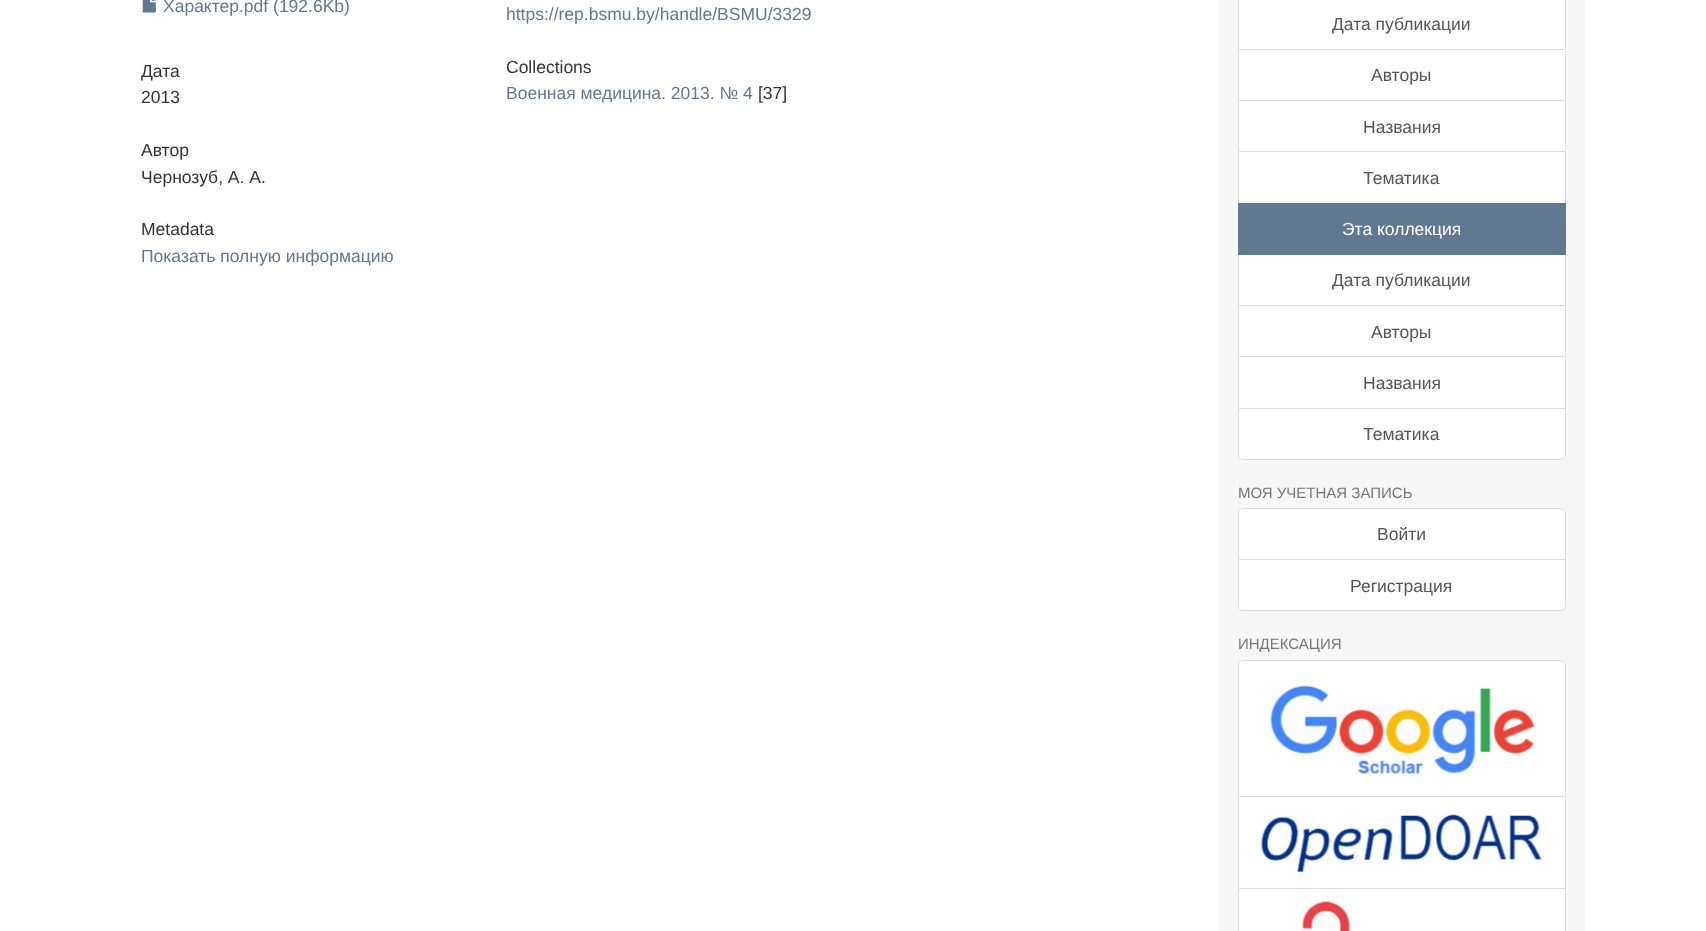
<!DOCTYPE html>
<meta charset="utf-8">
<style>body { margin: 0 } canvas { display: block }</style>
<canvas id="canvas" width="1706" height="931"></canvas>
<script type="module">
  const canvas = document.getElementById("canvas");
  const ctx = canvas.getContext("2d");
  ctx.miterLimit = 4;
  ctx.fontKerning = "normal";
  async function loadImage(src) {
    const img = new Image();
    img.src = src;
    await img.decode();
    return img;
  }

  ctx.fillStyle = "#ffffff";
  ctx.fillRect(0, 0, 1706, 931);
  ctx.fillStyle = "#f7f7f7";
  ctx.fillRect(1219, 0, 366, 931);
  ctx.drawImage(await loadImage("img1.png"), 142, 0, 14, 13);
  ctx.font = "17.5px Liberation Sans";
  ctx.fillStyle = "#607890";
  ctx.fillText("Характер.pdf (192.6Kb)", 163, 12);
  ctx.fillStyle = "#333333";
  ctx.fillText("Дата", 141, 77);
  ctx.fillText("2013", 141, 103);
  ctx.fillText("Автор", 141, 156);
  ctx.fillText("Чернозуб, А. А.", 141, 183);
  ctx.fillText("Metadata", 141, 235);
  ctx.fillStyle = "#607890";
  ctx.fillText("Показать полную информацию", 141, 262);
  ctx.fillText("https://rep.bsmu.by/handle/BSMU/3329", 506, 20);
  ctx.fillStyle = "#333333";
  ctx.fillText("Collections", 506, 73);
  ctx.fillStyle = "#607890";
  ctx.fillText("Военная медицина. 2013. № 4", 506, 99);
  ctx.fillStyle = "#333333";
  ctx.fillText("[37]", 758, 99);
  ctx.fillStyle = "#ffffff";
  ctx.beginPath();
  ctx.rect(1238.5, -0.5, 327, 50);
  ctx.fill();
  ctx.strokeStyle = "#dddddd";
  ctx.stroke();
  ctx.fillStyle = "#555555";
  ctx.fillText("Дата публикации", 1332, 30);
  ctx.fillStyle = "#ffffff";
  ctx.beginPath();
  ctx.rect(1238.5, 49.5, 327, 51);
  ctx.fill();
  ctx.stroke();
  ctx.fillStyle = "#555555";
  ctx.fillText("Авторы", 1371, 81);
  ctx.fillStyle = "#ffffff";
  ctx.fillRect(1239, 101, 326, 50);
  ctx.strokeRect(1238.5, 100.5, 327, 52);
  ctx.fillStyle = "#555555";
  ctx.fillText("Названия", 1363, 133);
  ctx.fillStyle = "#ffffff";
  ctx.beginPath();
  ctx.rect(1238.5, 151.5, 327, 52);
  ctx.fill();
  ctx.stroke();
  ctx.fillStyle = "#555555";
  ctx.fillText("Тематика", 1363, 184);
  ctx.fillStyle = "#ffffff";
  ctx.beginPath();
  ctx.rect(1238.5, 254.5, 327, 51);
  ctx.fill();
  ctx.stroke();
  ctx.fillStyle = "#607890";
  ctx.fillRect(1238, 203, 328, 52);
  ctx.fillStyle = "#ffffff";
  ctx.fillText("Эта коллекция", 1342, 235);
  ctx.fillStyle = "#555555";
  ctx.fillText("Дата публикации", 1332, 286);
  ctx.fillStyle = "#ffffff";
  ctx.fillRect(1239, 306, 326, 50);
  ctx.strokeRect(1238.5, 305.5, 327, 52);
  ctx.fillStyle = "#555555";
  ctx.fillText("Авторы", 1371, 338);
  ctx.fillStyle = "#ffffff";
  ctx.beginPath();
  ctx.rect(1238.5, 356.5, 327, 52);
  ctx.fill();
  ctx.stroke();
  ctx.fillStyle = "#555555";
  ctx.fillText("Названия", 1363, 389);
  ctx.fillStyle = "#ffffff";
  ctx.beginPath();
  ctx.roundRect(1238.5, 408.5, 327, 51, [0, 0, 4.5, 4.5]);
  ctx.fill();
  ctx.stroke();
  ctx.fillStyle = "#555555";
  ctx.fillText("Тематика", 1363, 440);
  ctx.font = "15px Liberation Sans";
  ctx.fillStyle = "#777777";
  ctx.fillText("МОЯ УЧЕТНАЯ ЗАПИСЬ", 1238, 498);
  ctx.fillStyle = "#ffffff";
  ctx.beginPath();
  ctx.roundRect(1238.5, 508.5, 327, 51, [4.5, 4.5, 0, 0]);
  ctx.fill();
  ctx.stroke();
  ctx.font = "17.5px Liberation Sans";
  ctx.fillStyle = "#555555";
  ctx.fillText("Войти", 1377, 540);
  ctx.fillStyle = "#ffffff";
  ctx.beginPath();
  ctx.roundRect(1238.5, 559.5, 327, 51, [0, 0, 4.5, 4.5]);
  ctx.fill();
  ctx.stroke();
  ctx.fillStyle = "#555555";
  ctx.fillText("Регистрация", 1350, 592);
  ctx.font = "15px Liberation Sans";
  ctx.fillStyle = "#777777";
  ctx.fillText("ИНДЕКСАЦИЯ", 1238, 649);
  ctx.fillStyle = "#ffffff";
  ctx.beginPath();
  ctx.roundRect(1238.5, 660.5, 327, 137, [4.5, 4.5, 0, 0]);
  ctx.fill();
  ctx.stroke();
  ctx.drawImage(await loadImage("img2.png"), 1270, 685, 265, 89);
  ctx.beginPath();
  ctx.rect(1238.5, 796.5, 327, 92);
  ctx.fill();
  ctx.stroke();
  ctx.drawImage(await loadImage("img3.png"), 1260, 814, 282, 59);
  ctx.beginPath();
  ctx.rect(1238.5, 888.5, 327, 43);
  ctx.fill();
  ctx.stroke();
  ctx.drawImage(await loadImage("img4.png"), 1301, 900, 50, 31);
</script>
